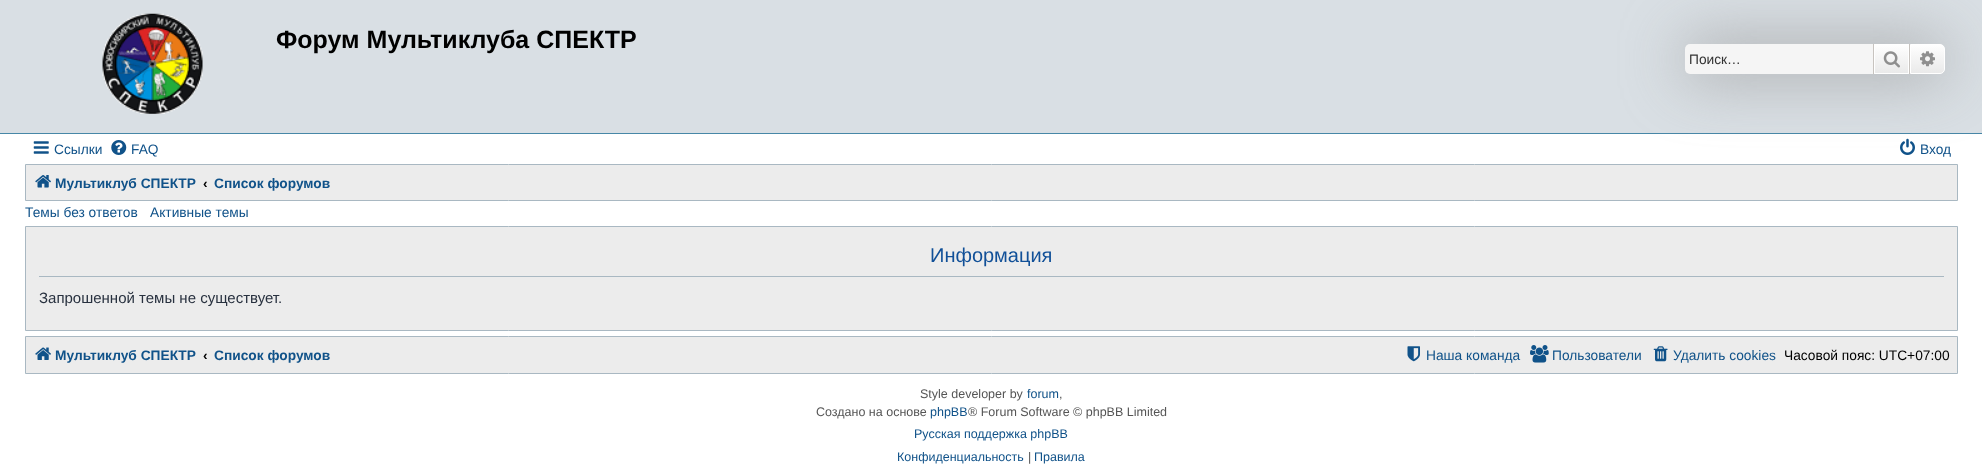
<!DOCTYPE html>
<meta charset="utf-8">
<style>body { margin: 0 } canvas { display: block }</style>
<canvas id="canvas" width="1982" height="473"></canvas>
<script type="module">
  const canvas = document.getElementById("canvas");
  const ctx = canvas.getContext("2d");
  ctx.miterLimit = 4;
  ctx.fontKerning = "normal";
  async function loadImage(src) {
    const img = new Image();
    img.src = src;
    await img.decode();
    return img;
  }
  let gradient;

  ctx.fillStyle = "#ffffff";
  ctx.fillRect(0, 0, 1982, 473);
  ctx.fillStyle = "#d9dfe4";
  ctx.fillRect(0, 0, 1982, 133);
  ctx.fillStyle = "#4787a7";
  ctx.fillRect(0, 133, 1982, 1);
  ctx.drawImage(await loadImage("img1.png"), 102, 13, 101, 101);
  ctx.font = "bold 25px Liberation Sans";
  ctx.fillStyle = "#000000";
  ctx.fillText("Форум Мультиклуба СПЕКТР", 276, 48);
  ctx.fillStyle = "#ececec";
  ctx.beginPath();
  ctx.rect(25.5, 164.5, 1932, 36);
  ctx.fill();
  ctx.strokeStyle = "#a9b8c2";
  ctx.stroke();
  ctx.fillStyle = "#999999";
  ctx.filter = "blur(31px)";
  ctx.beginPath();
  ctx.roundRect(1685, 44, 260, 30, 5);
  ctx.fill();
  ctx.filter = "none";
  ctx.fillStyle = "#f5f5f5";
  ctx.beginPath();
  ctx.roundRect(1685, 44, 188, 30, [5, 0, 0, 5]);
  ctx.fill();
  ctx.font = "13.75px Liberation Sans";
  ctx.fillStyle = "#333333";
  ctx.fillText("Поиск…", 1689, 64);
  gradient = ctx.createLinearGradient(1891, 44, 1891, 74);
  gradient.addColorStop(0, "#ffffff");
  gradient.addColorStop(1, "#e9e9e9");
  ctx.fillStyle = gradient;
  ctx.fillRect(1875, 45, 33, 28);
  ctx.strokeStyle = "#ffffff";
  ctx.strokeRect(1874.5, 44.5, 34, 29);
  ctx.fillStyle = "#c7c3bf";
  ctx.fillRect(1909, 44, 1, 30);
  ctx.fillRect(1873, 44, 1, 30);
  ctx.drawImage(await loadImage("img2.png"), 1883, 51, 17, 17);
  gradient = ctx.createLinearGradient(1928, 44, 1928, 74);
  gradient.addColorStop(0, "#ffffff");
  gradient.addColorStop(1, "#e9e9e9");
  ctx.fillStyle = gradient;
  ctx.beginPath();
  ctx.roundRect(1910.5, 44.5, 34, 29, [0, 4.5, 4.5, 0]);
  ctx.fill();
  ctx.stroke();
  ctx.drawImage(await loadImage("img3.png"), 1920, 51, 15, 16);
  ctx.drawImage(await loadImage("img4.png"), 33, 141, 16, 13);
  ctx.fillStyle = "#105289";
  ctx.fillText("Ссылки", 54, 154);
  ctx.drawImage(await loadImage("img5.png"), 111, 140, 16, 15);
  ctx.fillText("FAQ", 131, 154);
  ctx.drawImage(await loadImage("img6.png"), 1900, 138, 15, 17);
  ctx.fillText("Вход", 1920, 154);
  ctx.drawImage(await loadImage("img7.png"), 35, 175, 16, 13);
  ctx.font = "bold 13.75px Liberation Sans";
  ctx.fillText("Мультиклуб СПЕКТР", 55, 188);
  ctx.fillStyle = "#000000";
  ctx.fillText("‹", 203, 188);
  ctx.fillStyle = "#105289";
  ctx.fillText("Список форумов", 214, 188);
  ctx.font = "13.75px Liberation Sans";
  ctx.fillText("Темы без ответов", 25, 217);
  ctx.fillText("Активные темы", 150, 217);
  ctx.fillStyle = "#ececec";
  ctx.beginPath();
  ctx.rect(25.5, 226.5, 1932, 104);
  ctx.fill();
  ctx.strokeStyle = "#a9b8c2";
  ctx.stroke();
  ctx.fillStyle = "#a9b8c2";
  ctx.fillRect(39, 276, 1905, 1);
  ctx.font = "20px Liberation Sans";
  ctx.fillStyle = "#115098";
  ctx.fillText("Информация", 930, 262);
  ctx.font = "15px Liberation Sans";
  ctx.fillStyle = "#28313f";
  ctx.fillText("Запрошенной темы не существует.", 39, 303);
  ctx.fillStyle = "#ececec";
  ctx.beginPath();
  ctx.rect(25.5, 336.5, 1932, 37);
  ctx.fill();
  ctx.stroke();
  ctx.drawImage(await loadImage("img8.png"), 35, 347, 16, 13);
  ctx.font = "bold 13.75px Liberation Sans";
  ctx.fillStyle = "#105289";
  ctx.fillText("Мультиклуб СПЕКТР", 55, 360);
  ctx.fillStyle = "#000000";
  ctx.fillText("‹", 203, 360);
  ctx.fillStyle = "#105289";
  ctx.fillText("Список форумов", 214, 360);
  ctx.drawImage(await loadImage("img9.png"), 1407, 346, 13, 16);
  ctx.font = "13.75px Liberation Sans";
  ctx.fillText("Наша команда", 1426, 360);
  ctx.drawImage(await loadImage("img10.png"), 1530, 345, 19, 18);
  ctx.fillText("Пользователи", 1552, 360);
  ctx.drawImage(await loadImage("img11.png"), 1653, 346, 15, 16);
  ctx.fillText("Удалить cookies", 1673, 360);
  ctx.fillStyle = "#000000";
  ctx.fillText("Часовой пояс: UTC+07:00", 1784, 360);
  ctx.font = "12.5px Liberation Sans";
  ctx.fillStyle = "#555555";
  ctx.fillText("Style developer by", 920, 398);
  ctx.fillStyle = "#105289";
  ctx.fillText("forum", 1027, 398);
  ctx.fillStyle = "#555555";
  ctx.fillText(",", 1059, 398);
  ctx.fillText("Создано на основе", 816, 416);
  ctx.fillStyle = "#105289";
  ctx.fillText("phpBB", 930, 416);
  ctx.fillStyle = "#555555";
  ctx.fillText("® Forum Software © phpBB Limited", 968, 416);
  ctx.fillStyle = "#105289";
  ctx.fillText("Русская поддержка phpBB", 914, 438);
  ctx.fillText("Конфиденциальность", 897, 461);
  ctx.fillStyle = "#555555";
  ctx.fillText("|", 1028, 461);
  ctx.fillStyle = "#105289";
  ctx.fillText("Правила", 1034, 461);
</script>
